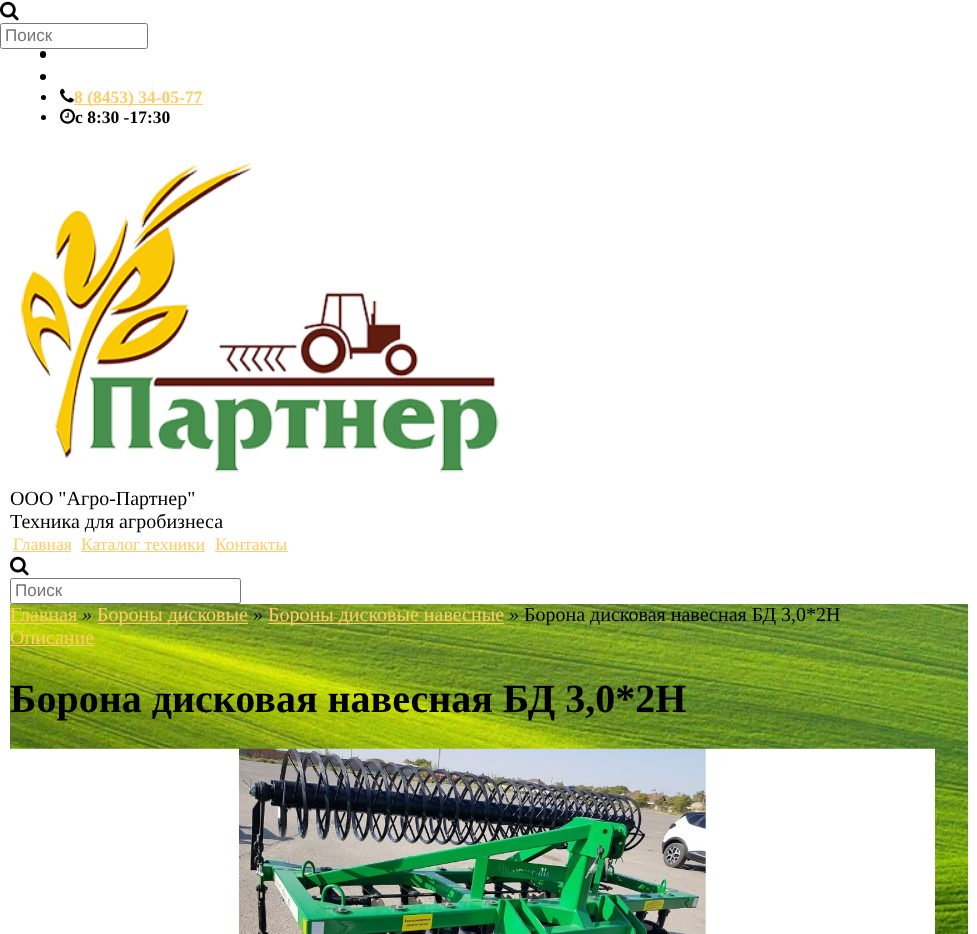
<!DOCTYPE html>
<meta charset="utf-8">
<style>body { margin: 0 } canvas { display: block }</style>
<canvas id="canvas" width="977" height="934"></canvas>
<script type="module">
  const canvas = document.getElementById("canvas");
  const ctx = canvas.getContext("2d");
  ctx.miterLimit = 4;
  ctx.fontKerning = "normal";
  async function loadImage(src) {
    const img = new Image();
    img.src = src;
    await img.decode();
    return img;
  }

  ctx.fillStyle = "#ffffff";
  ctx.fillRect(0, 0, 977, 934);
  ctx.drawImage(await loadImage("img1.png"), 0, 1, 19, 20);
  ctx.beginPath();
  ctx.roundRect(0.5, 23.5, 147, 25, 2);
  ctx.strokeStyle = "#767676";
  ctx.stroke();
  ctx.font = "17px Liberation Sans";
  ctx.fillStyle = "#757575";
  ctx.fillText("Поиск", 5, 41);
  ctx.fillStyle = "#000000";
  ctx.beginPath();
  ctx.arc(43, 77, 3, 0, Math.PI * 2);
  ctx.fill();
  ctx.beginPath();
  ctx.roundRect(40, 51, 6, 7, 3);
  ctx.fill();
  ctx.beginPath();
  ctx.arc(43.5, 97.5, 2.5, 0, Math.PI * 2);
  ctx.fill();
  ctx.drawImage(await loadImage("img2.png"), 60, 88, 14, 15);
  ctx.fillStyle = "#ffcc66";
  ctx.fillRect(74, 104, 129, 1);
  ctx.font = "bold 17.5px Liberation Serif";
  ctx.fillText("8 (8453) 34-05-77", 74, 103);
  ctx.fillStyle = "#000000";
  ctx.beginPath();
  ctx.arc(43.5, 117.5, 2.5, 0, Math.PI * 2);
  ctx.fill();
  ctx.drawImage(await loadImage("img3.png"), 60, 108, 15, 16);
  ctx.fillText("с 8:30 -17:30", 75, 123);
  ctx.drawImage(await loadImage("img4.png"), 21, 162, 478, 311);
  ctx.font = "20px Liberation Serif";
  ctx.fillText("ООО \"Агро-Партнер\"", 10, 505);
  ctx.fillText("Техника для агробизнеса", 10, 528);
  ctx.font = "17.5px Liberation Serif";
  ctx.fillStyle = "#ffcc66";
  ctx.fillText("Главная", 13, 550);
  ctx.fillRect(13, 551, 58, 1);
  ctx.fillText("Каталог техники", 81, 550);
  ctx.fillRect(81, 551, 124, 1);
  ctx.fillText("Контакты", 215, 550);
  ctx.fillRect(215, 551, 73, 1);
  ctx.drawImage(await loadImage("img1.png"), 10, 556, 19, 20);
  ctx.beginPath();
  ctx.roundRect(10.5, 578.5, 230, 25, 2);
  ctx.stroke();
  ctx.font = "17px Liberation Sans";
  ctx.fillStyle = "#757575";
  ctx.fillText("Поиск", 15, 596);
  ctx.drawImage(await loadImage("img5.png"), 10, 604, 958, 330);
  ctx.font = "20px Liberation Serif";
  ctx.fillStyle = "#ffcc66";
  ctx.fillText("Главная", 10, 621);
  ctx.fillRect(10, 623, 68, 1);
  ctx.font = "italic 20px Liberation Serif";
  ctx.fillStyle = "#000000";
  ctx.fillText("»", 82, 621);
  ctx.fillStyle = "#ffcc66";
  ctx.fillRect(98, 623, 150, 1);
  ctx.font = "20px Liberation Serif";
  ctx.fillText("Бороны дисковые", 97, 621);
  ctx.font = "italic 20px Liberation Serif";
  ctx.fillStyle = "#000000";
  ctx.fillText("»", 253, 621);
  ctx.fillStyle = "#ffcc66";
  ctx.fillRect(268, 623, 236, 1);
  ctx.font = "20px Liberation Serif";
  ctx.fillText("Бороны дисковые навесные", 268, 621);
  ctx.font = "italic 20px Liberation Serif";
  ctx.fillStyle = "#000000";
  ctx.fillText("»", 509, 621);
  ctx.font = "20px Liberation Serif";
  ctx.fillText("Борона дисковая навесная БД 3,0*2Н", 524, 621);
  ctx.fillStyle = "#ffcc66";
  ctx.fillText("Описание", 10, 644);
  ctx.fillRect(10, 645, 84, 1);
  ctx.font = "bold 40px Liberation Serif";
  ctx.fillStyle = "#000000";
  ctx.fillText("Борона дисковая навесная БД 3,0*2Н", 10, 712);
  ctx.drawImage(await loadImage("img6.png"), 10, 748, 925, 186);
</script>
